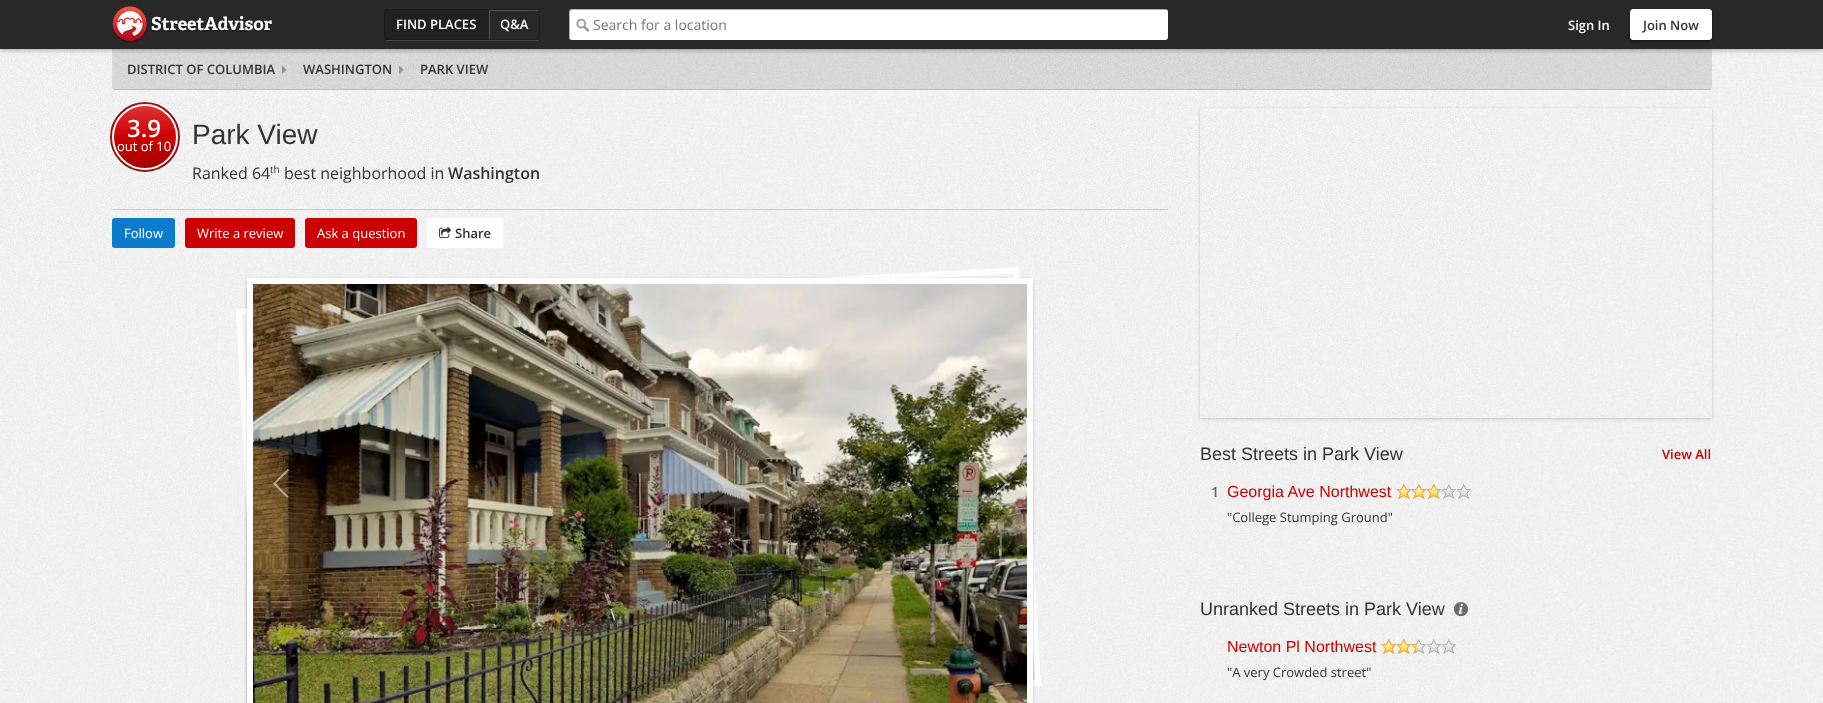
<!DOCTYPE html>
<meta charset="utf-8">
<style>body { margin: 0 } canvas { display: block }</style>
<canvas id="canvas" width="1823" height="703"></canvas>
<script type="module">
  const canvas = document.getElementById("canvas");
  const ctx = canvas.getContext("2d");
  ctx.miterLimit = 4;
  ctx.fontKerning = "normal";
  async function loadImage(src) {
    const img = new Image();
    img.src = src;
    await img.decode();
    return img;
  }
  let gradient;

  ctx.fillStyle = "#ffffff";
  ctx.fillRect(0, 0, 1823, 703);
  ctx.drawImage(await loadImage("img1.png"), 0, 49, 1823, 654);
  ctx.fillStyle = "rgba(0, 0, 0, 0.1)";
  ctx.beginPath();
  ctx.roundRect(112, 49, 1600, 41, [0, 0, 3, 3]);
  ctx.fill();
  ctx.fillStyle = "rgba(0, 0, 0, 0.3)";
  ctx.filter = "blur(2.5px)";
  ctx.beginPath();
  ctx.rect(0, 1, 1823, 49);
  ctx.fill();
  ctx.filter = "none";
  ctx.fillStyle = "#282828";
  ctx.fillRect(0, 0, 1823, 49);
  ctx.drawImage(await loadImage("img2.png"), 112, 6, 160, 37);
  ctx.fillStyle = "#484848";
  ctx.fillRect(386, 40, 153, 1);
  ctx.fillStyle = "#202020";
  ctx.beginPath();
  ctx.roundRect(384, 9, 104, 31, [3, 0, 0, 3]);
  ctx.fill();
  ctx.fillStyle = "#1a1a1a";
  ctx.beginPath();
  ctx.moveTo(387, 9);
  ctx.lineTo(385, 10);
  ctx.lineTo(386, 11);
  ctx.lineTo(387, 10);
  ctx.lineTo(487, 10);
  ctx.lineTo(488, 9);
  ctx.closePath();
  ctx.fill();
  ctx.fillStyle = "#1b1b1b";
  ctx.beginPath();
  ctx.moveTo(488, 40);
  ctx.lineTo(487, 39);
  ctx.lineTo(387, 39);
  ctx.lineTo(386, 38);
  ctx.lineTo(385, 39);
  ctx.lineTo(387, 40);
  ctx.closePath();
  ctx.fill();
  ctx.fillStyle = "rgba(0, 0, 0, 0.15)";
  ctx.beginPath();
  ctx.moveTo(384, 12);
  ctx.lineTo(384, 37);
  ctx.bezierCurveTo(384, 38, 384, 39, 385, 39);
  ctx.lineTo(385.5, 38.5);
  ctx.lineTo(385, 37);
  ctx.lineTo(385, 12);
  ctx.lineTo(385.5, 10.5);
  ctx.lineTo(385, 10);
  ctx.bezierCurveTo(384, 10, 384, 11, 384, 12);
  ctx.closePath();
  ctx.fill();
  ctx.font = "600 13px Open Sans";
  ctx.fillStyle = "#ffffff";
  ctx.fillText("FIND PLACES", 396, 29);
  ctx.fillStyle = "#535353";
  ctx.beginPath();
  ctx.moveTo(490, 11);
  ctx.lineTo(539, 11);
  ctx.lineTo(538, 10);
  ctx.lineTo(489, 10);
  ctx.lineTo(489, 39);
  ctx.lineTo(490, 39);
  ctx.closePath();
  ctx.fill();
  ctx.fillStyle = "rgba(0, 0, 0, 0.2)";
  ctx.beginPath();
  ctx.moveTo(488, 9);
  ctx.lineTo(489, 10);
  ctx.lineTo(529, 10);
  ctx.bezierCurveTo(534, 10, 537, 10, 538, 11);
  ctx.lineTo(539, 10);
  ctx.bezierCurveTo(538, 9, 535, 9, 529, 9);
  ctx.closePath();
  ctx.fill();
  ctx.fillStyle = "#202020";
  ctx.beginPath();
  ctx.moveTo(540, 38);
  ctx.lineTo(539, 39);
  ctx.lineTo(538.5, 38.5);
  ctx.bezierCurveTo(540.5, 37.5, 539.5, 31.5, 539, 29.5);
  ctx.lineTo(539, 18.5);
  ctx.bezierCurveTo(539.5, 17, 540.5, 11.5, 538.5, 10.5);
  ctx.lineTo(539, 10);
  ctx.lineTo(540, 10.5);
  ctx.closePath();
  ctx.fill();
  ctx.fillStyle = "#222222";
  ctx.beginPath();
  ctx.moveTo(529, 40);
  ctx.bezierCurveTo(535, 40, 538, 40, 539, 39);
  ctx.lineTo(538, 38);
  ctx.bezierCurveTo(537, 39, 534, 39, 529, 39);
  ctx.lineTo(489, 39);
  ctx.lineTo(488, 40);
  ctx.closePath();
  ctx.fill();
  ctx.fillStyle = "rgba(0, 0, 0, 0.15)";
  ctx.beginPath();
  ctx.moveTo(488, 9);
  ctx.lineTo(488, 40);
  ctx.lineTo(489, 39);
  ctx.lineTo(489, 10);
  ctx.closePath();
  ctx.fill();
  ctx.fillStyle = "#ffffff";
  ctx.fillText("Q&A", 500, 29);
  ctx.beginPath();
  ctx.roundRect(569, 9, 599, 31, 3);
  ctx.fill();
  ctx.drawImage(await loadImage("img3.png"), 576, 18, 14, 14);
  ctx.fillStyle = "rgba(0, 0, 0, 0.3)";
  ctx.beginPath();
  ctx.moveTo(573, 10);
  ctx.lineTo(1167, 10);
  ctx.lineTo(1166, 9);
  ctx.lineTo(572, 9);
  ctx.bezierCurveTo(568, 9, 569, 14, 569, 16);
  ctx.lineTo(569, 24);
  ctx.bezierCurveTo(569, 27, 568, 38, 570, 39);
  ctx.lineTo(570, 17);
  ctx.bezierCurveTo(570, 15, 569, 10, 573, 10);
  ctx.closePath();
  ctx.fill();
  ctx.font = "14px Open Sans";
  ctx.fillStyle = "#757575";
  ctx.fillText("Search for a location", 593, 30);
  ctx.font = "600 13px Open Sans";
  ctx.fillStyle = "#ffffff";
  ctx.fillText("Sign In", 1568, 30);
  ctx.fillStyle = "rgba(0, 0, 0, 0.6)";
  ctx.filter = "blur(1.5px)";
  ctx.beginPath();
  ctx.roundRect(1630, 10, 82, 31, 3);
  ctx.fill();
  ctx.filter = "none";
  ctx.fillStyle = "#ffffff";
  ctx.beginPath();
  ctx.roundRect(1630.5, 9.5, 81, 30, 2.5);
  ctx.fill();
  ctx.strokeStyle = "#ffffff";
  ctx.stroke();
  ctx.fillStyle = "#333333";
  ctx.fillText("Join Now", 1643, 30);
  ctx.fillStyle = "#bbbbbb";
  ctx.fillRect(114, 89, 1597, 1);
  ctx.drawImage(await loadImage("img4.png"), 282, 65, 5, 10);
  ctx.fillStyle = "#333333";
  ctx.fillText("DISTRICT OF COLUMBIA", 127, 74);
  ctx.drawImage(await loadImage("img5.png"), 399, 65, 5, 10);
  ctx.fillText("WASHINGTON", 303, 74);
  ctx.fillText("PARK VIEW", 420, 74);
  ctx.fillStyle = "#cc0000";
  ctx.beginPath();
  ctx.arc(145, 137, 34, 0, Math.PI * 2);
  ctx.fill();
  ctx.strokeStyle = "#971414";
  ctx.lineWidth = 2;
  ctx.stroke();
  ctx.save();
  ctx.beginPath();
  ctx.roundRect(112, 104, 66, 66, 33);
  ctx.clip();
  gradient = ctx.createLinearGradient(145, 106, 145, 168);
  gradient.addColorStop(0, "rgba(255, 127, 127, 0.4)");
  gradient.addColorStop(0.5, "rgba(255, 127, 127, 0)");
  gradient.addColorStop(0.5, "rgba(0, 0, 0, 0)");
  gradient.addColorStop(1, "rgba(0, 0, 0, 0.2)");
  ctx.fillStyle = gradient;
  ctx.fillRect(112, 106, 66, 62);
  ctx.restore();
  ctx.beginPath();
  ctx.arc(145, 137, 32, 0, Math.PI * 2);
  ctx.strokeStyle = "#ffffff";
  ctx.stroke();
  ctx.font = "600 24px Open Sans";
  ctx.fillStyle = "#ffffff";
  ctx.fillText("3.9", 127, 137);
  ctx.font = "13px Open Sans";
  ctx.fillText("out of 10", 117, 151);
  ctx.font = "28px Liberation Sans";
  ctx.fillStyle = "#333333";
  ctx.fillText("Park View", 192, 144);
  ctx.font = "16px Open Sans";
  ctx.fillText("Ranked 64", 192, 179);
  ctx.font = "10px Open Sans";
  ctx.fillText("th", 270, 173);
  ctx.font = "16px Open Sans";
  ctx.fillText("best neighborhood in", 284, 179);
  ctx.font = "600 16px Open Sans";
  ctx.fillText("Washington", 448, 179);
  ctx.fillStyle = "#cccccc";
  ctx.fillRect(112, 209, 1056, 1);
  ctx.fillStyle = "#0c7bcb";
  ctx.beginPath();
  ctx.roundRect(112, 218, 63, 30, 3);
  ctx.fill();
  ctx.font = "13px Open Sans";
  ctx.fillStyle = "#ffffff";
  ctx.fillText("Follow", 124, 238);
  ctx.fillStyle = "#cc0000";
  ctx.beginPath();
  ctx.roundRect(185, 218, 110, 30, 3);
  ctx.fill();
  ctx.fillStyle = "#ffffff";
  ctx.fillText("Write a review", 197, 238);
  ctx.fillStyle = "#cc0000";
  ctx.beginPath();
  ctx.roundRect(305, 218, 112, 30, 3);
  ctx.fill();
  ctx.fillStyle = "#ffffff";
  ctx.fillText("Ask a question", 317, 238);
  ctx.beginPath();
  ctx.roundRect(427, 218, 76, 30, 3);
  ctx.fill();
  ctx.drawImage(await loadImage("img6.png"), 439, 226, 12, 12);
  ctx.font = "600 13px Open Sans";
  ctx.fillStyle = "#333333";
  ctx.fillText("Share", 455, 238);
  ctx.fillStyle = "rgba(0, 0, 0, 0.2)";
  ctx.filter = "blur(1.5px)";
  ctx.beginPath();
  ctx.roundRect(247, 289, 784, 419, 2);
  ctx.fill();
  ctx.filter = "none";
  gradient = ctx.createLinearGradient(221, -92, 242, 314);
  gradient.addColorStop(0, "#f2f2f2");
  gradient.addColorStop(1, "#dcdcdc");
  ctx.fillStyle = gradient;
  ctx.beginPath();
  ctx.moveTo(238, 308);
  ctx.lineTo(1017, 268);
  ctx.lineTo(1019, 268);
  ctx.lineTo(1019, 273);
  ctx.lineTo(236, 315);
  ctx.bezierCurveTo(236, 313, 235, 309, 238, 308);
  ctx.closePath();
  ctx.fill();
  gradient = ctx.createLinearGradient(242, 314, 264, 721);
  gradient.addColorStop(0, "#f2f2f2");
  gradient.addColorStop(1, "#dcdcdc");
  ctx.fillStyle = gradient;
  ctx.beginPath();
  ctx.moveTo(248, 544);
  ctx.lineTo(236, 315);
  ctx.lineTo(1019, 273);
  ctx.lineTo(1041, 680);
  ctx.lineTo(258, 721);
  ctx.closePath();
  ctx.fill();
  ctx.beginPath();
  ctx.moveTo(239, 311.5);
  ctx.lineTo(1016, 270.5);
  ctx.lineTo(1038, 683);
  ctx.lineTo(261, 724);
  ctx.closePath();
  ctx.lineWidth = 6;
  ctx.stroke();
  ctx.fillStyle = "rgba(0, 0, 0, 0.2)";
  ctx.filter = "blur(1.5px)";
  ctx.beginPath();
  ctx.roundRect(247, 279, 786, 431, 2);
  ctx.fill();
  ctx.filter = "none";
  ctx.beginPath();
  ctx.moveTo(250, 281);
  ctx.lineTo(1030, 281);
  ctx.lineTo(1030, 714);
  ctx.lineTo(250, 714);
  ctx.closePath();
  ctx.stroke();
  ctx.drawImage(await loadImage("img7.png"), 253, 284, 774, 419);
  ctx.drawImage(await loadImage("img8.png"), 273, 468, 17, 30);
  ctx.drawImage(await loadImage("img9.png"), 992, 469, 16, 29);
  ctx.save();
  ctx.beginPath();
  ctx.moveTo(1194, 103);
  ctx.lineTo(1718, 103);
  ctx.lineTo(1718, 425);
  ctx.lineTo(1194, 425);
  ctx.closePath();
  ctx.moveTo(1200, 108);
  ctx.lineTo(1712, 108);
  ctx.lineTo(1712, 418);
  ctx.lineTo(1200, 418);
  ctx.closePath();
  ctx.clip("evenodd");
  ctx.filter = "blur(1.5px)";
  ctx.beginPath();
  ctx.rect(1200, 109, 512, 310);
  ctx.fill();
  ctx.filter = "none";
  ctx.restore();
  ctx.font = "18px Liberation Sans";
  ctx.fillStyle = "#333333";
  ctx.fillText("Best Streets in Park View", 1200, 460);
  ctx.font = "600 13px Open Sans";
  ctx.fillStyle = "#cc0000";
  ctx.fillText("View All", 1662, 459);
  ctx.font = "600 14px Open Sans";
  ctx.fillStyle = "#666666";
  ctx.fillText("1", 1211, 497);
  ctx.font = "16px Liberation Sans";
  ctx.fillStyle = "#cc0000";
  ctx.fillText("Georgia Ave Northwest", 1227, 497);
  ctx.drawImage(await loadImage("img10.png"), 1396, 484, 75, 15);
  ctx.drawImage(await loadImage("img11.png"), 1396, 484, 45, 15);
  ctx.font = "13px Open Sans";
  ctx.fillStyle = "#333333";
  ctx.fillText("\"College Stumping Ground\"", 1227, 522);
  ctx.font = "18px Liberation Sans";
  ctx.fillText("Unranked Streets in Park View", 1200, 615);
  ctx.drawImage(await loadImage("img12.png"), 1454, 602, 14, 14);
  ctx.font = "16px Liberation Sans";
  ctx.fillStyle = "#cc0000";
  ctx.fillText("Newton Pl Northwest", 1227, 652);
  ctx.drawImage(await loadImage("img13.png"), 1381, 639, 75, 15);
  ctx.drawImage(await loadImage("img14.png"), 1381, 639, 37, 15);
  ctx.font = "13px Open Sans";
  ctx.fillStyle = "#333333";
  ctx.fillText("\"A very Crowded street\"", 1227, 677);
</script>
